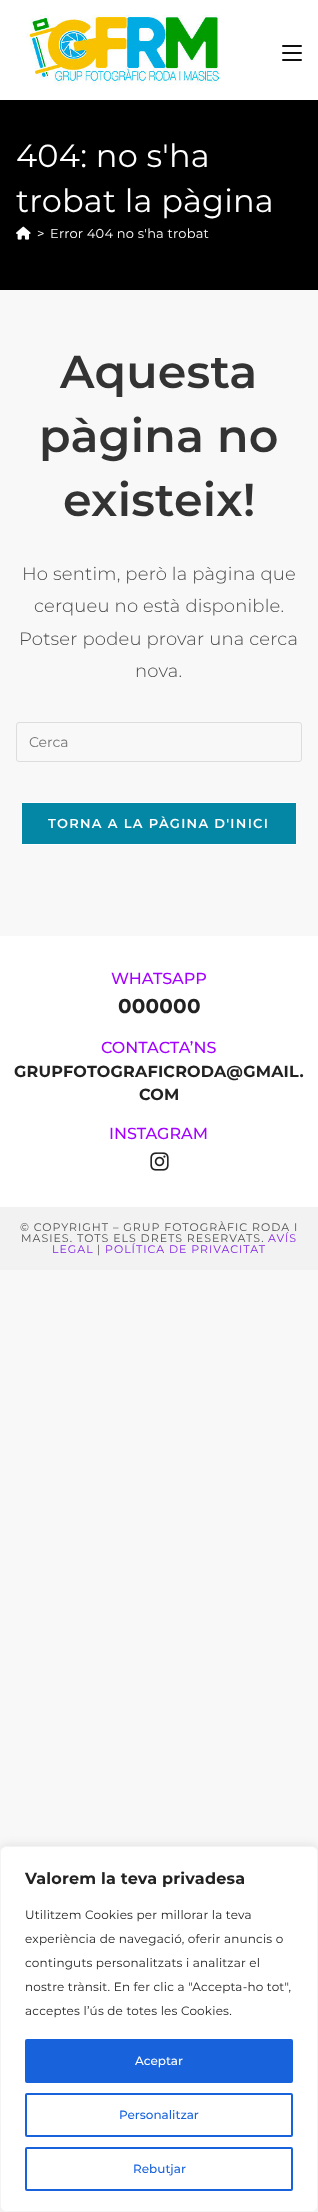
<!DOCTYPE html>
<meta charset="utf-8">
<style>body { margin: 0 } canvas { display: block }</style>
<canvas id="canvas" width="318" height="2212"></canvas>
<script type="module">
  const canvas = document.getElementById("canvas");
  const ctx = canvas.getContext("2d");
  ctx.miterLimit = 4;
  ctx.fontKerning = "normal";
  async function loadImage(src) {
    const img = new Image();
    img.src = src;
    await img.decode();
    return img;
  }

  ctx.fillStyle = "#f8f8f8";
  ctx.fillRect(0, 0, 318, 2212);
  ctx.fillStyle = "#ffffff";
  ctx.fillRect(0, 0, 318, 100);
  ctx.drawImage(await loadImage("img1.png"), 25, 15, 195, 70);
  ctx.fillStyle = "#0e0e0e";
  ctx.beginPath();
  ctx.roundRect(282, 52, 20, 2, 1);
  ctx.fill();
  ctx.beginPath();
  ctx.roundRect(282, 45, 20, 2, 1);
  ctx.fill();
  ctx.beginPath();
  ctx.roundRect(282, 59, 20, 2, 1);
  ctx.fill();
  ctx.fillStyle = "#000000";
  ctx.fillRect(0, 100, 318, 190);
  ctx.letterSpacing = "0.2px";
  ctx.font = "32px Montserrat";
  ctx.fillStyle = "#ffffff";
  ctx.fillText("404: no s'ha", 16, 167);
  ctx.fillText("trobat la pàgina", 16, 212);
  ctx.drawImage(await loadImage("img2.png"), 16, 226, 15, 14);
  ctx.font = "13px Montserrat";
  ctx.fillText(">", 37, 238);
  ctx.fillText("Error 404 no s'ha trobat", 50, 238);
  ctx.font = "600 46px Montserrat";
  ctx.fillStyle = "#333333";
  ctx.fillText("Aquesta", 60, 388);
  ctx.fillText("pàgina no", 39, 452);
  ctx.fillText("existeix!", 63, 516);
  ctx.font = "300 18px Montserrat";
  ctx.fillStyle = "#4a4a4a";
  ctx.fillText("Ho sentim, però la pàgina que", 22, 580);
  ctx.fillText("cerqueu no està disponible.", 34, 612);
  ctx.fillText("Potser podeu provar una cerca", 19, 645);
  ctx.fillText("nova.", 135, 677);
  ctx.beginPath();
  ctx.roundRect(16.5, 722.5, 285, 39, 2.5);
  ctx.strokeStyle = "#dddddd";
  ctx.stroke();
  ctx.letterSpacing = "0px";
  ctx.font = "14px Montserrat";
  ctx.fillStyle = "#757575";
  ctx.fillText("Cerca", 29, 747);
  ctx.fillStyle = "#0387a5";
  ctx.beginPath();
  ctx.rect(21.5, 802.5, 275, 42);
  ctx.fill();
  ctx.strokeStyle = "#ffffff";
  ctx.stroke();
  ctx.letterSpacing = "1.3px";
  ctx.font = "600 13px Montserrat";
  ctx.fillStyle = "#ffffff";
  ctx.fillText("TORNA A LA PÀGINA D'INICI", 48, 828);
  ctx.fillRect(0, 936, 318, 271);
  ctx.letterSpacing = "0px";
  ctx.font = "500 16px Montserrat";
  ctx.fillStyle = "#a400ff";
  ctx.fillText("WHATSAPP", 111, 984);
  ctx.letterSpacing = "0.2px";
  ctx.font = "bold 20px Montserrat";
  ctx.fillStyle = "#222222";
  ctx.fillText("000000", 118, 1013);
  ctx.letterSpacing = "0px";
  ctx.font = "500 16px Montserrat";
  ctx.fillStyle = "#a400ff";
  ctx.fillText("CONTACTA’NS", 101, 1053);
  ctx.letterSpacing = "0.2px";
  ctx.font = "bold 16px Montserrat";
  ctx.fillStyle = "#222222";
  ctx.fillText("GRUPFOTOGRAFICRODA@GMAIL.", 14, 1077);
  ctx.fillText("COM", 139, 1100);
  ctx.letterSpacing = "0px";
  ctx.font = "500 16px Montserrat";
  ctx.fillStyle = "#a400ff";
  ctx.fillText("INSTAGRAM", 109, 1139);
  ctx.drawImage(await loadImage("img3.png"), 150, 1152, 19, 19);
  ctx.fillStyle = "#f2f2f2";
  ctx.fillRect(0, 1207, 318, 63);
  ctx.letterSpacing = "1px";
  ctx.font = "11px Montserrat";
  ctx.fillStyle = "#515151";
  ctx.fillText("© COPYRIGHT – GRUP FOTOGRÀFIC RODA I", 20, 1231);
  ctx.fillText("MASIES. TOTS ELS DRETS RESERVATS.", 21, 1242);
  ctx.fillStyle = "#8224e3";
  ctx.fillText("AVÍS", 268, 1242);
  ctx.fillText("LEGAL", 52, 1253);
  ctx.fillStyle = "#515151";
  ctx.fillText("|", 97, 1253);
  ctx.fillStyle = "#8224e3";
  ctx.fillText("POLÍTICA DE PRIVACITAT", 105, 1253);
  ctx.fillStyle = "rgba(172, 171, 171, 0.3)";
  ctx.filter = "blur(5px)";
  ctx.beginPath();
  ctx.roundRect(0, 1845, 318, 366, 6);
  ctx.fill();
  ctx.filter = "none";
  ctx.fillStyle = "#ffffff";
  ctx.beginPath();
  ctx.roundRect(0.5, 1846.5, 317, 365, 5.5);
  ctx.fill();
  ctx.strokeStyle = "#f4f4f4";
  ctx.stroke();
  ctx.letterSpacing = "0.2px";
  ctx.font = "bold 16px Montserrat";
  ctx.fillStyle = "#222222";
  ctx.fillText("Valorem la teva privadesa", 25, 1884);
  ctx.font = "12px Montserrat";
  ctx.fillText("Utilitzem Cookies per millorar la teva", 25, 1919);
  ctx.fillText("experiència de navegació, oferir anuncis o", 25, 1943);
  ctx.fillText("continguts personalitzats i analitzar el", 25, 1967);
  ctx.fillText("nostre trànsit. En fer clic a \"Accepta-ho tot\",", 25, 1991);
  ctx.fillText("acceptes l’ús de totes les Cookies.", 25, 2015);
  ctx.fillStyle = "#1863dc";
  ctx.beginPath();
  ctx.roundRect(26, 2040, 266, 42, 1);
  ctx.fill();
  ctx.strokeStyle = "#1863dc";
  ctx.lineWidth = 2;
  ctx.stroke();
  ctx.letterSpacing = "0px";
  ctx.font = "500 12px Montserrat";
  ctx.fillStyle = "#ffffff";
  ctx.fillText("Aceptar", 135, 2065);
  ctx.beginPath();
  ctx.roundRect(26, 2094, 266, 42, 1);
  ctx.stroke();
  ctx.fillStyle = "#1863dc";
  ctx.fillText("Personalitzar", 119, 2119);
  ctx.beginPath();
  ctx.roundRect(26, 2148, 266, 42, 1);
  ctx.stroke();
  ctx.fillText("Rebutjar", 133, 2173);
</script>
